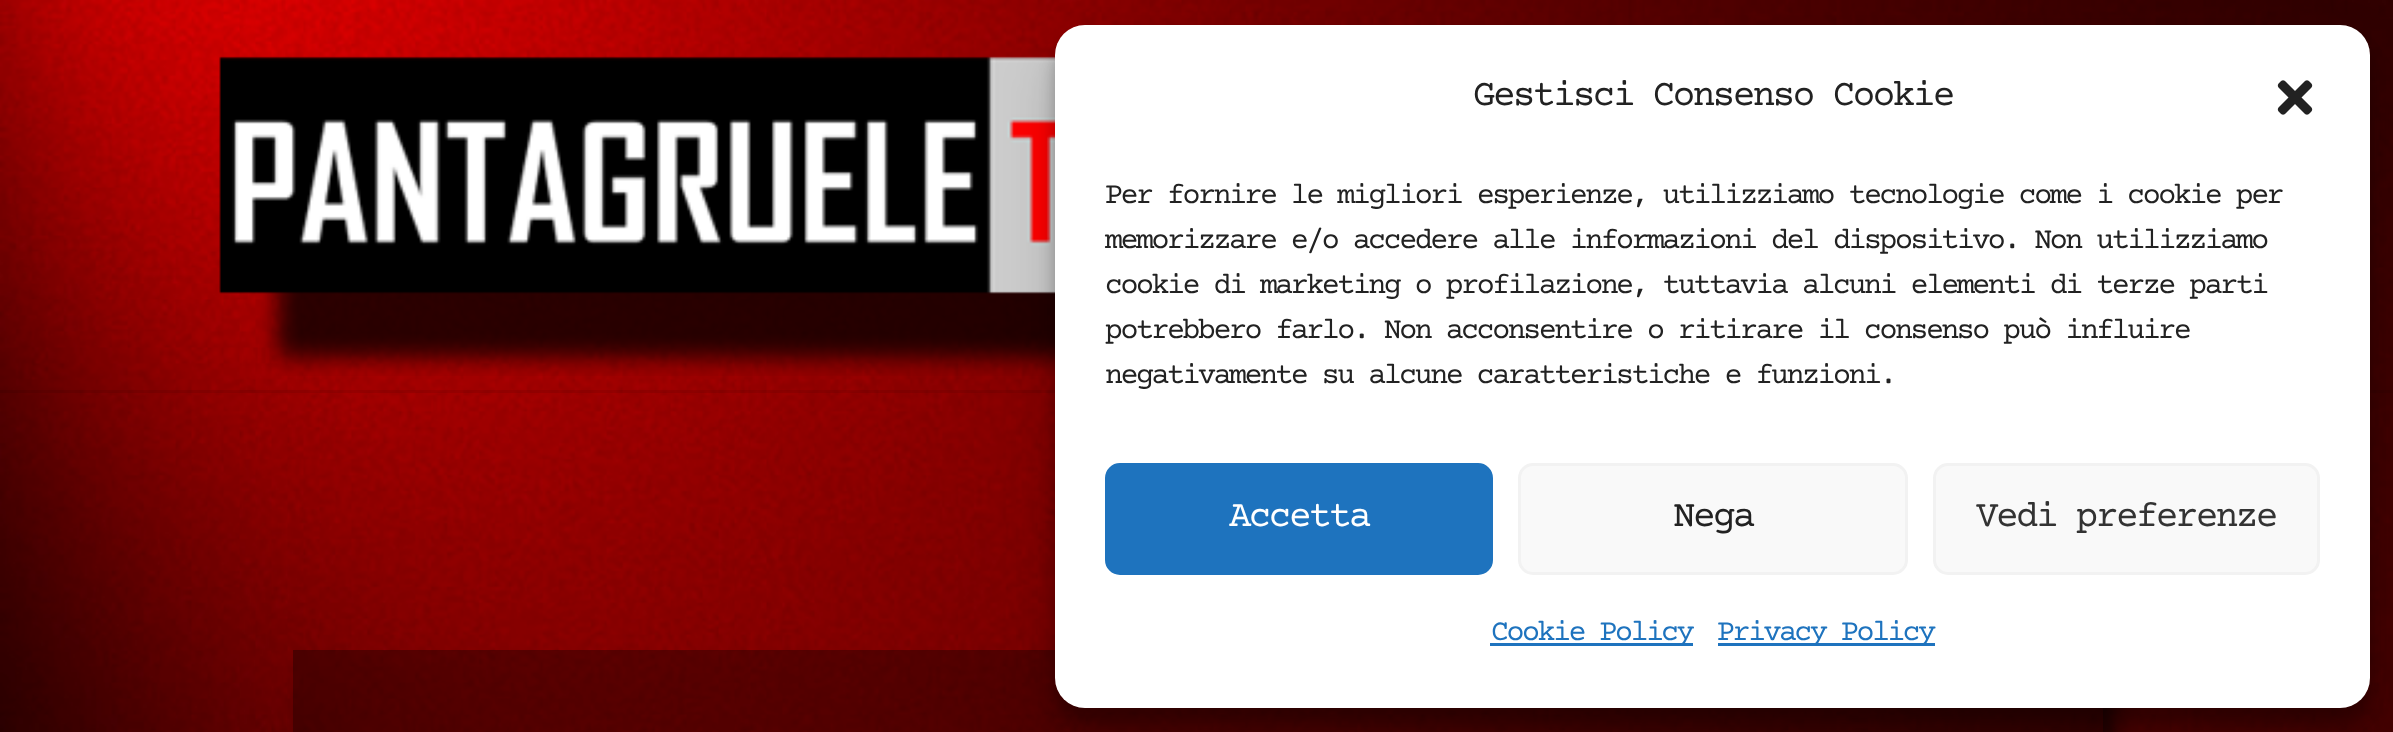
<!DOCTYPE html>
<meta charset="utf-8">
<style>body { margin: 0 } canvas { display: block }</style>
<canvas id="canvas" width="2393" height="732"></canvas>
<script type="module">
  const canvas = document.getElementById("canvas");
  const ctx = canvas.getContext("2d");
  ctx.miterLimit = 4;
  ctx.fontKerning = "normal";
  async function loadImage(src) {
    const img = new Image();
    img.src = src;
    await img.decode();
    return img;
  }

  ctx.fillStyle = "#ffffff";
  ctx.fillRect(0, 0, 2393, 732);
  ctx.drawImage(await loadImage("img1.png"), 0, 0, 2393, 732);
  ctx.fillStyle = "rgba(0, 0, 0, 0.08)";
  ctx.fillRect(0, 390, 2393, 3);
  ctx.drawImage(await loadImage("img2.png"), 219, 56, 836, 320);
  ctx.save();
  ctx.beginPath();
  ctx.moveTo(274, 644);
  ctx.lineTo(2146, 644);
  ctx.lineTo(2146, 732);
  ctx.lineTo(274, 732);
  ctx.closePath();
  ctx.moveTo(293, 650);
  ctx.lineTo(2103, 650);
  ctx.lineTo(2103, 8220);
  ctx.lineTo(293, 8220);
  ctx.closePath();
  ctx.clip("evenodd");
  ctx.fillStyle = "rgba(0, 0, 0, 0.6)";
  ctx.filter = "blur(10px)";
  ctx.beginPath();
  ctx.rect(305, 675, 1810, 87);
  ctx.fill();
  ctx.filter = "none";
  ctx.restore();
  ctx.fillStyle = "rgba(0, 0, 0, 0.33)";
  ctx.fillRect(293, 650, 1810, 82);
  ctx.fillStyle = "rgba(0, 0, 0, 0.23)";
  ctx.filter = "blur(7.5px)";
  ctx.beginPath();
  ctx.roundRect(1055, 40, 1315, 683, 30);
  ctx.fill();
  ctx.filter = "none";
  ctx.fillStyle = "rgba(0, 0, 0, 0.19)";
  ctx.filter = "blur(25px)";
  ctx.beginPath();
  ctx.roundRect(1055, 50, 1315, 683, 30);
  ctx.fill();
  ctx.filter = "none";
  ctx.fillStyle = "#ffffff";
  ctx.beginPath();
  ctx.roundRect(1055, 25, 1315, 683, 30);
  ctx.fill();
  ctx.letterSpacing = "-2.5px";
  ctx.font = "37.5px Courier Prime";
  ctx.fillStyle = "#222222";
  ctx.fillText("Gestisci Consenso Cookie", 1473, 105);
  ctx.drawImage(await loadImage("img3.png"), 2277, 80, 36, 35);
  ctx.font = "30px Courier Prime";
  ctx.fillText("Per fornire le migliori esperienze, utilizziamo tecnologie come i cookie per", 1105, 203);
  ctx.fillText("memorizzare e/o accedere alle informazioni del dispositivo. Non utilizziamo", 1105, 248);
  ctx.fillText("cookie di marketing o profilazione, tuttavia alcuni elementi di terze parti", 1105, 293);
  ctx.fillText("potrebbero farlo. Non acconsentire o ritirare il consenso può influire", 1105, 338);
  ctx.fillText("negativamente su alcune caratteristiche e funzioni.", 1105, 383);
  ctx.fillStyle = "#1e73be";
  ctx.beginPath();
  ctx.roundRect(1106.5, 464.5, 385, 109, 13.5);
  ctx.fill();
  ctx.strokeStyle = "#1e73be";
  ctx.lineWidth = 3;
  ctx.stroke();
  ctx.font = "37.5px Courier Prime";
  ctx.fillStyle = "#ffffff";
  ctx.fillText("Accetta", 1229, 526);
  ctx.fillStyle = "#f9f9f9";
  ctx.beginPath();
  ctx.roundRect(1519.5, 464.5, 387, 109, 13.5);
  ctx.fill();
  ctx.strokeStyle = "#f2f2f2";
  ctx.stroke();
  ctx.fillStyle = "#222222";
  ctx.fillText("Nega", 1673, 526);
  ctx.fillStyle = "#f9f9f9";
  ctx.beginPath();
  ctx.roundRect(1934.5, 464.5, 384, 109, 13.5);
  ctx.fill();
  ctx.stroke();
  ctx.fillStyle = "#333333";
  ctx.fillText("Vedi preferenze", 1976, 526);
  ctx.fillStyle = "#1e73be";
  ctx.fillRect(1490, 643, 203, 3);
  ctx.font = "30px Courier Prime";
  ctx.fillText("Cookie Policy", 1491, 640);
  ctx.fillRect(1718, 643, 217, 3);
  ctx.fillText("Privacy Policy", 1717, 640);
</script>
